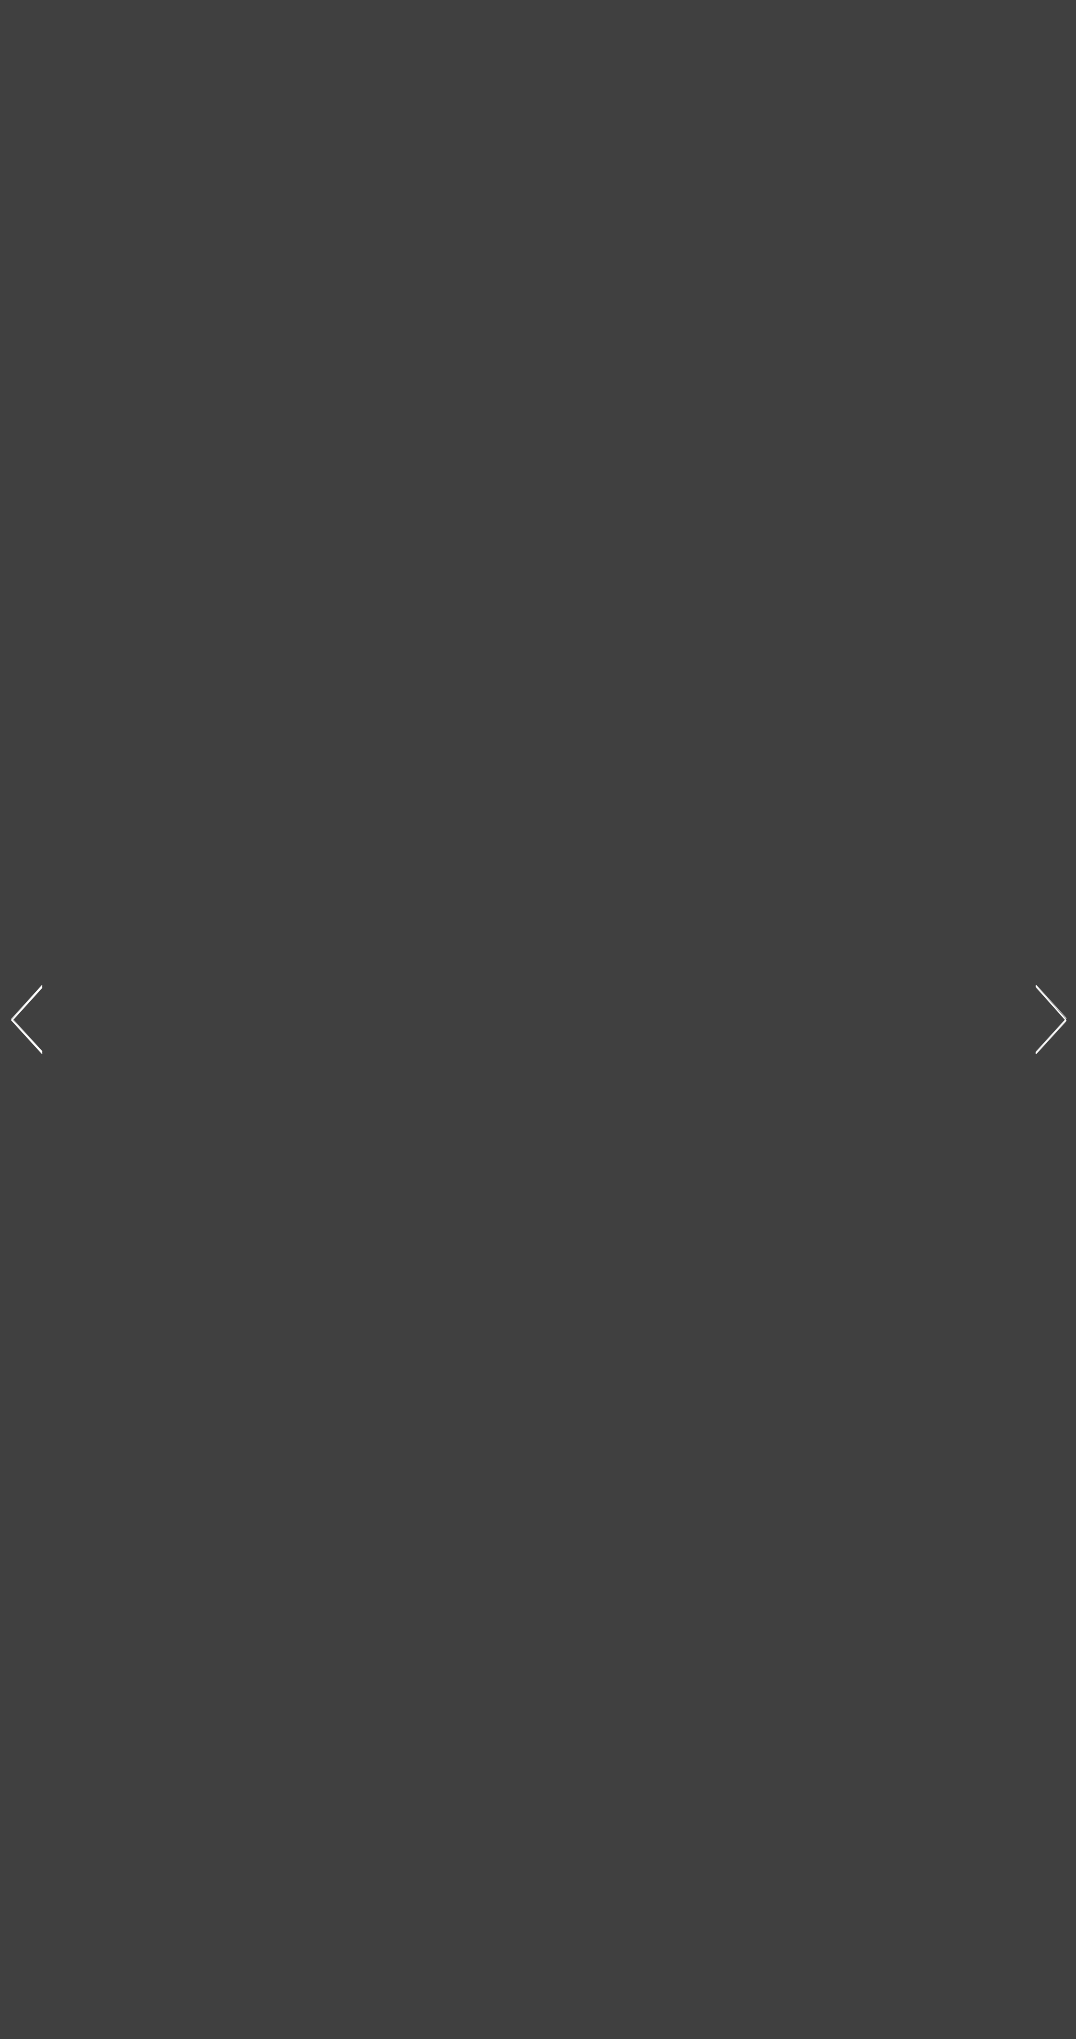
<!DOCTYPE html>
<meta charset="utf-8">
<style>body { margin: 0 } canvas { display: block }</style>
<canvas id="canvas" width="1076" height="2039"></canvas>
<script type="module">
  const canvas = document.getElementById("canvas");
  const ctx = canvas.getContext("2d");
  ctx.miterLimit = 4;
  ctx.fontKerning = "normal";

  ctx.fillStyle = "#404040";
  ctx.fillRect(0, 0, 1076, 2039);
  ctx.fillStyle = "#ffffff";
  ctx.beginPath();
  ctx.moveTo(13, 1020);
  ctx.lineTo(42, 1051);
  ctx.lineTo(42, 1054);
  ctx.lineTo(11, 1020);
  ctx.lineTo(42, 985);
  ctx.lineTo(42, 988);
  ctx.closePath();
  ctx.fill();
  ctx.save();
  ctx.beginPath();
  ctx.moveTo(11, 907);
  ctx.lineTo(27, 907);
  ctx.bezierCurveTo(35.5, 907, 43, 957.5, 43, 1020.5);
  ctx.bezierCurveTo(43, 1083, 35.5, 1134, 27, 1134);
  ctx.lineTo(11, 1134);
  ctx.closePath();
  ctx.clip();
  ctx.beginPath();
  ctx.moveTo(13, 1019.5);
  ctx.lineTo(43.5, 1053);
  ctx.lineTo(42.5, 1054);
  ctx.lineTo(11, 1019.5);
  ctx.lineTo(42.5, 985);
  ctx.lineTo(43.5, 986);
  ctx.closePath();
  ctx.strokeStyle = "#ffffff";
  ctx.lineWidth = 0.7;
  ctx.stroke();
  ctx.restore();
  ctx.beginPath();
  ctx.moveTo(1036, 987);
  ctx.lineTo(1036, 985);
  ctx.lineTo(1066, 1019);
  ctx.lineTo(1066, 1021);
  ctx.lineTo(1036, 1054);
  ctx.lineTo(1036, 1052);
  ctx.lineTo(1065, 1020);
  ctx.closePath();
  ctx.fill();
  ctx.save();
  ctx.beginPath();
  ctx.moveTo(1051, 907);
  ctx.lineTo(1066.5, 907);
  ctx.lineTo(1066.5, 1134);
  ctx.lineTo(1051, 1134);
  ctx.bezierCurveTo(1042, 1134, 1035, 1083, 1035, 1020.5);
  ctx.bezierCurveTo(1035, 957.5, 1042, 907, 1051, 907);
  ctx.closePath();
  ctx.clip();
  ctx.beginPath();
  ctx.moveTo(1067.5, 1019.5);
  ctx.lineTo(1036, 1054);
  ctx.lineTo(1035, 1053);
  ctx.lineTo(1065.5, 1019.5);
  ctx.lineTo(1035, 986);
  ctx.lineTo(1036, 985);
  ctx.closePath();
  ctx.strokeStyle = "#ffffff";
  ctx.lineWidth = 0.7;
  ctx.stroke();
  ctx.restore();
</script>
